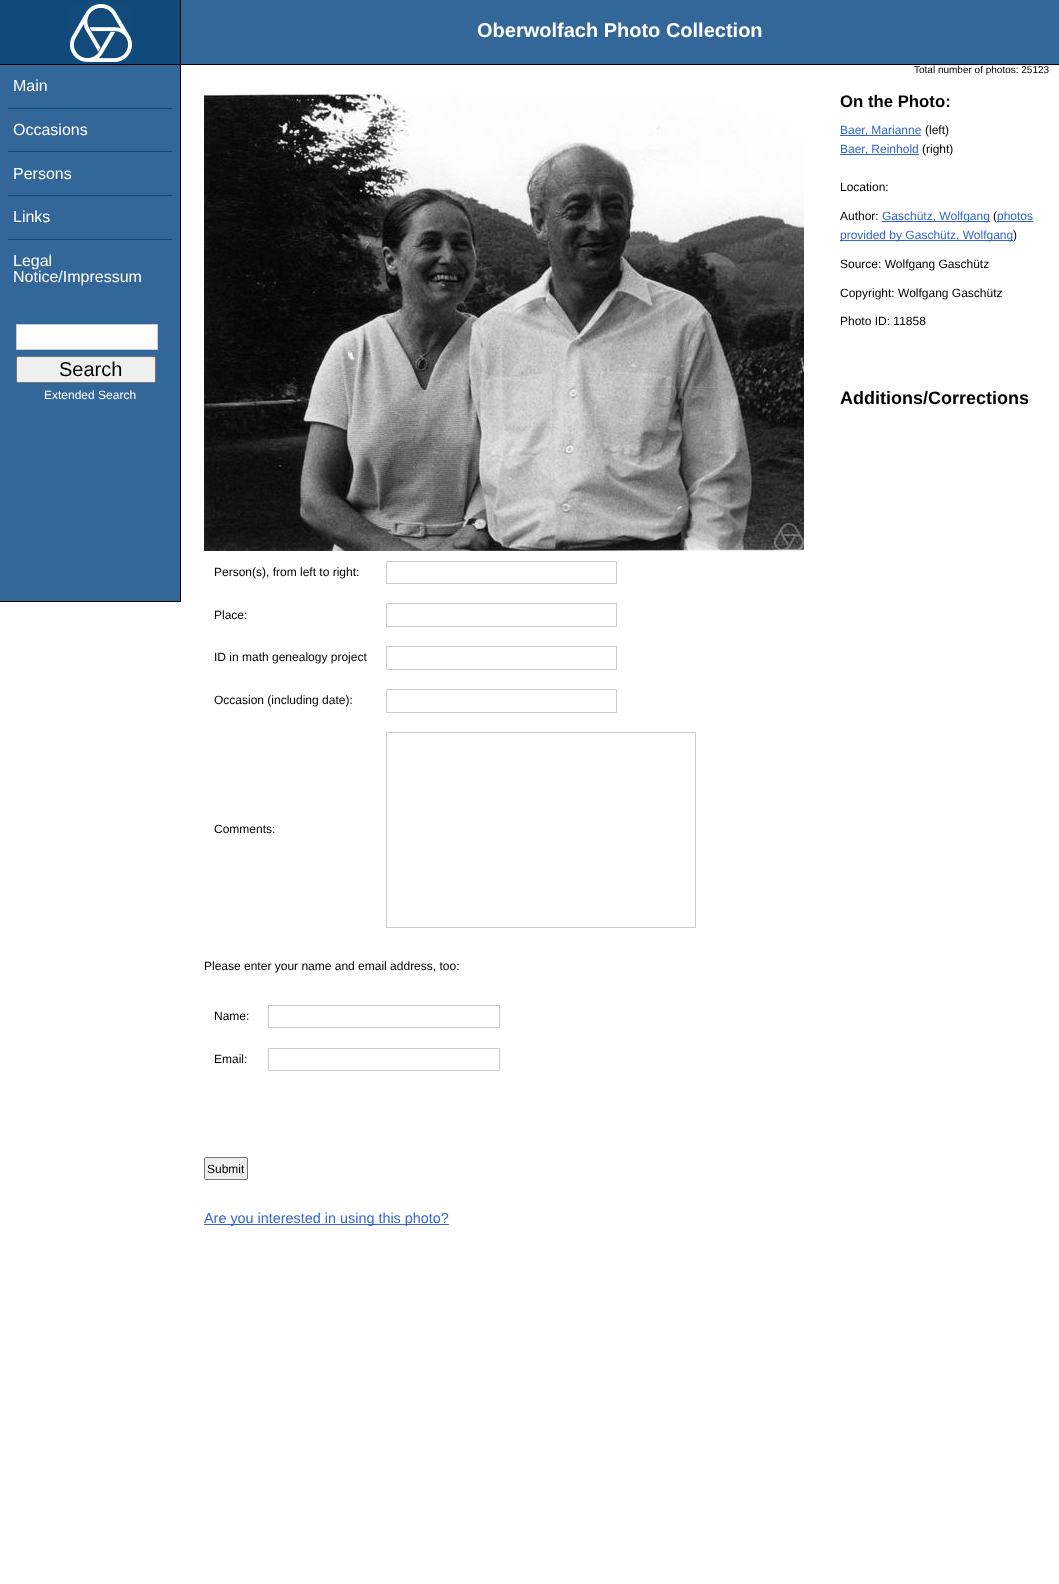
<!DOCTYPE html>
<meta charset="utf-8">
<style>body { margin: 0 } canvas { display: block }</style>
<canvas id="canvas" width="1059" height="1584"></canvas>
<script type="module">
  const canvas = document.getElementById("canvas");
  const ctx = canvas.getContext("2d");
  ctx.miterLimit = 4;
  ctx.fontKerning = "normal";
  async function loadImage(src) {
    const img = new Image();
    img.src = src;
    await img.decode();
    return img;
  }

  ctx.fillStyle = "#ffffff";
  ctx.fillRect(0, 0, 1059, 1584);
  ctx.fillStyle = "#336699";
  ctx.fillRect(181, 0, 878, 64);
  ctx.fillStyle = "#000000";
  ctx.fillRect(0, 64, 1059, 1);
  ctx.fillStyle = "#104a7b";
  ctx.fillRect(0, 0, 180, 64);
  ctx.fillStyle = "#000000";
  ctx.fillRect(180, 0, 1, 64);
  ctx.drawImage(await loadImage("img1.png"), 70, 4, 62, 58);
  ctx.font = "bold 20px Liberation Sans";
  ctx.fillStyle = "#ffffff";
  ctx.fillText("Oberwolfach Photo Collection", 477, 37);
  ctx.font = "10px Liberation Sans";
  ctx.fillStyle = "#000000";
  ctx.fillText("Total number of photos: 25123", 914, 73);
  ctx.fillStyle = "#336699";
  ctx.fillRect(0, 65, 180, 536);
  ctx.fillStyle = "#000000";
  ctx.fillRect(180, 65, 1, 537);
  ctx.fillRect(0, 601, 181, 1);
  ctx.font = "16px Liberation Sans";
  ctx.fillStyle = "#ffffff";
  ctx.fillText("Main", 13, 91);
  ctx.fillStyle = "#104a7b";
  ctx.fillRect(8, 108, 164, 1);
  ctx.fillStyle = "#ffffff";
  ctx.fillText("Occasions", 13, 135);
  ctx.fillStyle = "#104a7b";
  ctx.fillRect(8, 151, 164, 1);
  ctx.fillStyle = "#ffffff";
  ctx.fillText("Persons", 13, 179);
  ctx.fillStyle = "#104a7b";
  ctx.fillRect(8, 195, 164, 1);
  ctx.fillStyle = "#ffffff";
  ctx.fillText("Links", 13, 222);
  ctx.fillStyle = "#104a7b";
  ctx.fillRect(8, 239, 164, 1);
  ctx.fillStyle = "#ffffff";
  ctx.fillText("Legal", 13, 266);
  ctx.fillText("Notice/Impressum", 13, 282);
  ctx.beginPath();
  ctx.rect(16.5, 324.5, 141, 25);
  ctx.fill();
  ctx.strokeStyle = "#cccccc";
  ctx.stroke();
  ctx.fillStyle = "#efefef";
  ctx.beginPath();
  ctx.roundRect(16.5, 356.5, 139, 26, 1.5);
  ctx.fill();
  ctx.strokeStyle = "#767676";
  ctx.stroke();
  ctx.font = "20px Liberation Sans";
  ctx.fillStyle = "#000000";
  ctx.fillText("Search", 59, 376);
  ctx.font = "12px Liberation Sans";
  ctx.fillStyle = "#ffffff";
  ctx.fillText("Extended Search", 44, 399);
  ctx.drawImage(await loadImage("img2.png"), 204, 94, 600, 457);
  ctx.font = "bold 16.75px Liberation Sans";
  ctx.fillStyle = "#000000";
  ctx.fillText("On the Photo:", 840, 107);
  ctx.fillStyle = "#3366cc";
  ctx.fillRect(840, 135, 81, 1);
  ctx.font = "12px Liberation Sans";
  ctx.fillText("Baer, Marianne", 840, 134);
  ctx.fillStyle = "#000000";
  ctx.fillText("(left)", 925, 134);
  ctx.fillStyle = "#3366cc";
  ctx.fillRect(840, 154, 79, 1);
  ctx.fillText("Baer, Reinhold", 840, 153);
  ctx.fillStyle = "#000000";
  ctx.fillText("(right)", 922, 153);
  ctx.fillText("Location:", 840, 191);
  ctx.fillText("Author:", 840, 220);
  ctx.fillStyle = "#3366cc";
  ctx.fillRect(882, 221, 108, 1);
  ctx.fillText("Gaschütz, Wolfgang", 882, 220);
  ctx.fillStyle = "#000000";
  ctx.fillText("(", 993, 220);
  ctx.fillStyle = "#3366cc";
  ctx.fillRect(997, 221, 36, 1);
  ctx.fillText("photos", 997, 220);
  ctx.fillRect(840, 240, 173, 1);
  ctx.fillText("provided by Gaschütz, Wolfgang", 840, 239);
  ctx.fillStyle = "#000000";
  ctx.fillText(")", 1013, 239);
  ctx.fillText("Source: Wolfgang Gaschütz", 840, 268);
  ctx.fillText("Copyright: Wolfgang Gaschütz", 840, 297);
  ctx.fillText("Photo ID: 11858", 840, 325);
  ctx.font = "bold 18px Liberation Sans";
  ctx.fillText("Additions/Corrections", 840, 404);
  ctx.font = "12px Liberation Sans";
  ctx.fillText("Person(s), from left to right:", 214, 576);
  ctx.strokeStyle = "#cccccc";
  ctx.strokeRect(386.5, 561.5, 230, 22);
  ctx.fillText("Place:", 214, 619);
  ctx.strokeRect(386.5, 603.5, 230, 23);
  ctx.fillText("ID in math genealogy project", 214, 661);
  ctx.strokeRect(386.5, 646.5, 230, 23);
  ctx.fillText("Occasion (including date):", 214, 704);
  ctx.strokeRect(386.5, 689.5, 230, 23);
  ctx.fillText("Comments:", 214, 833);
  ctx.strokeRect(386.5, 732.5, 309, 195);
  ctx.fillText("Please enter your name and email address, too:", 204, 970);
  ctx.fillText("Name:", 214, 1020);
  ctx.strokeRect(268.5, 1005.5, 231, 22);
  ctx.fillText("Email:", 214, 1063);
  ctx.strokeRect(268.5, 1048.5, 231, 22);
  ctx.fillStyle = "#efefef";
  ctx.beginPath();
  ctx.roundRect(204.5, 1157.5, 43, 22, 1.5);
  ctx.fill();
  ctx.strokeStyle = "#767676";
  ctx.stroke();
  ctx.fillStyle = "#000000";
  ctx.fillText("Submit", 207, 1173);
  ctx.fillStyle = "#3366cc";
  ctx.fillRect(204, 1224, 245, 1);
  ctx.font = "14.4px Liberation Sans";
  ctx.fillText("Are you interested in using this photo?", 204, 1223);
</script>
